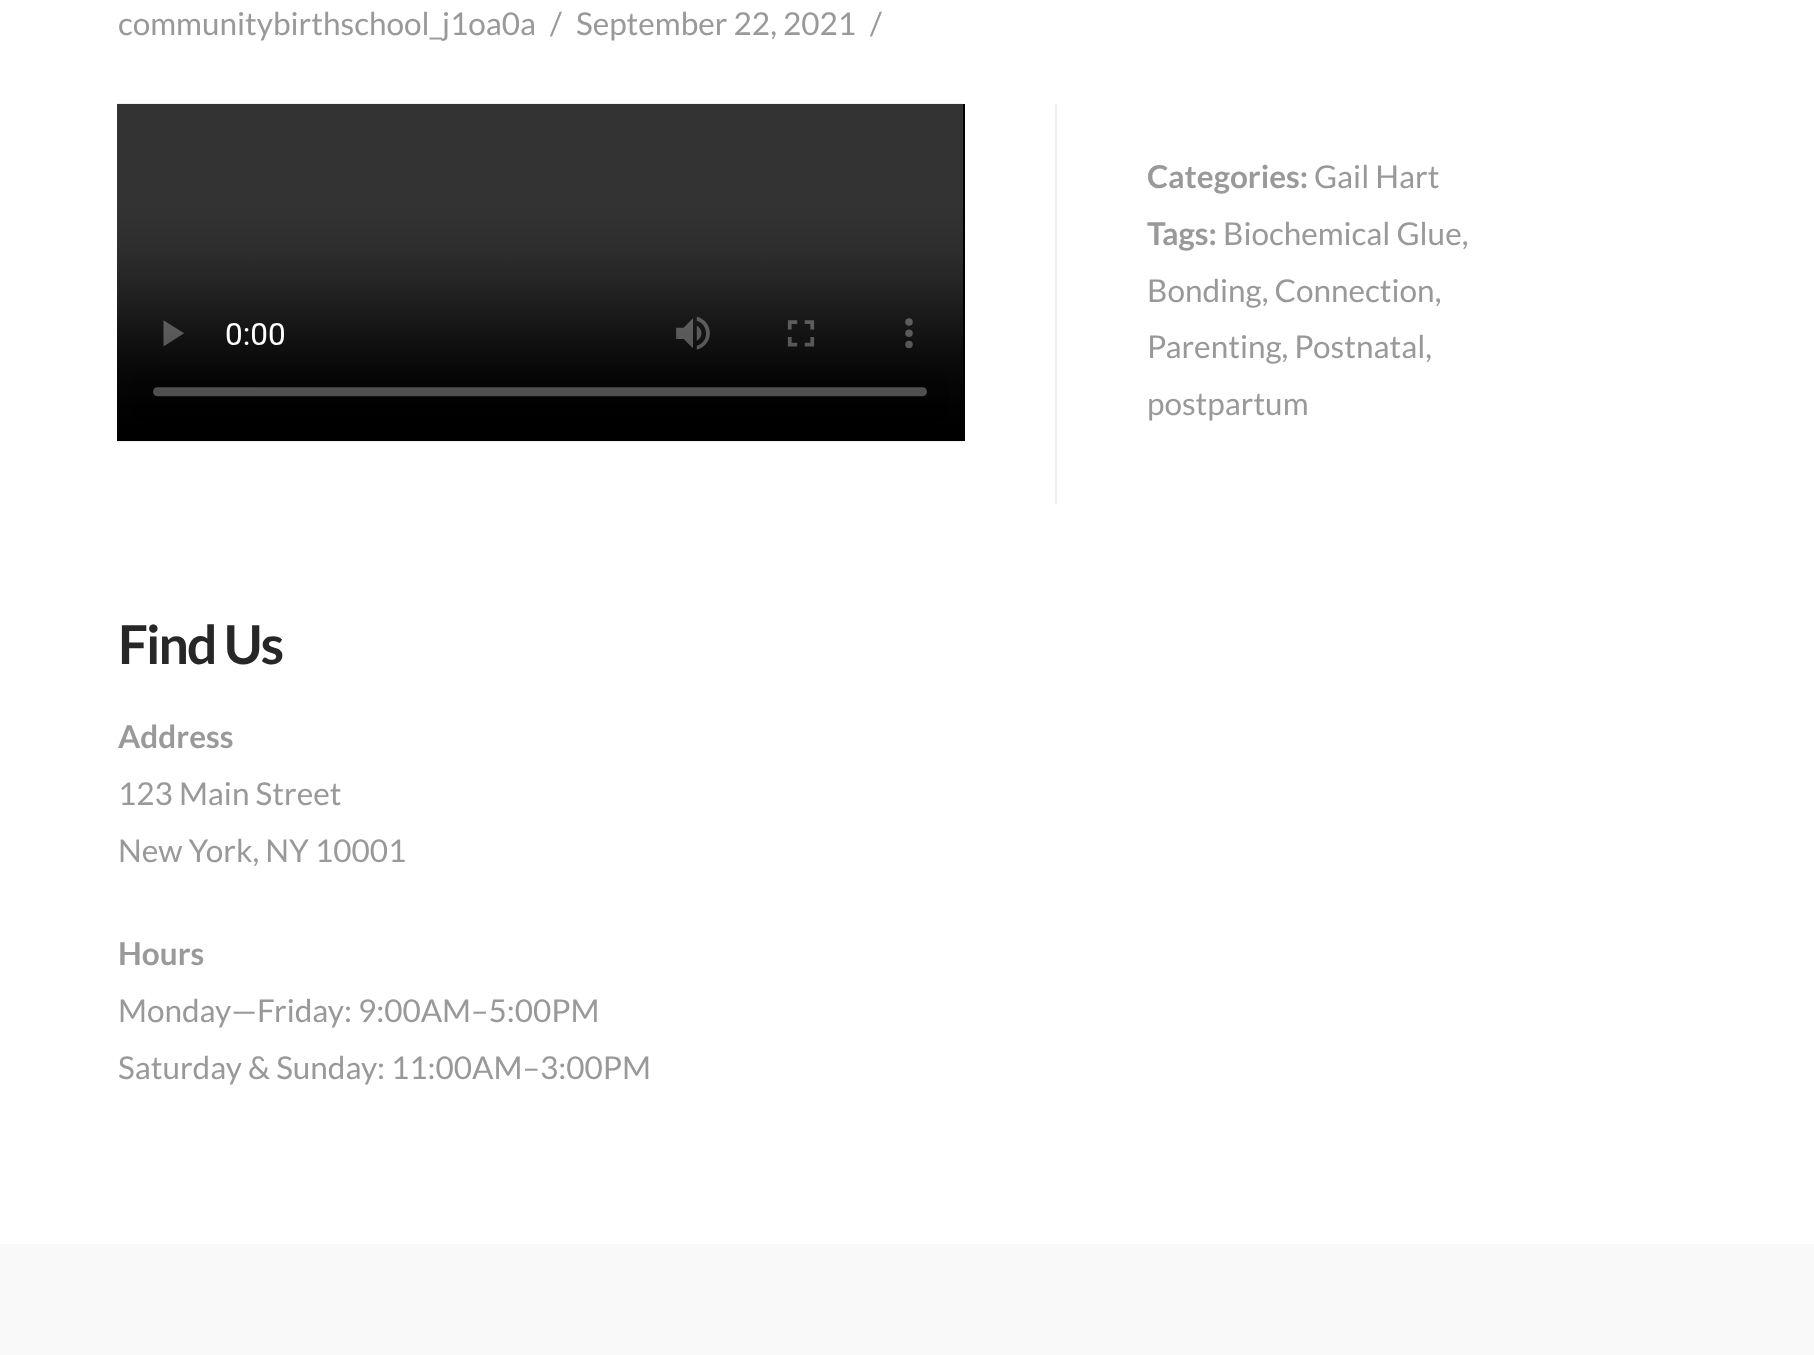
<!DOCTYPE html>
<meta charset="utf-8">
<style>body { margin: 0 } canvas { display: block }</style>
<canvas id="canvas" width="1814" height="1355"></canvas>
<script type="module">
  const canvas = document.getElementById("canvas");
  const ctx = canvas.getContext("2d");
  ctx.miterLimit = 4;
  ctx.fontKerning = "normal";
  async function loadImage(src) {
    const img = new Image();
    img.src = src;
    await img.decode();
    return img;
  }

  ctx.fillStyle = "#ffffff";
  ctx.fillRect(0, 0, 1814, 1355);
  ctx.font = "31.5px Lato";
  ctx.fillStyle = "#999999";
  ctx.fillText("communitybirthschool_j1oa0a", 118, 35);
  ctx.fillText("/", 550, 35);
  ctx.fillText("September 22, 2021", 576, 35);
  ctx.fillText("/", 870, 35);
  ctx.fillStyle = "#000000";
  ctx.fillRect(963, 104, 2, 337);
  ctx.drawImage(await loadImage("img1.png"), 117, 103, 846, 339);
  ctx.fillStyle = "#eeeeee";
  ctx.fillRect(1055, 104, 2, 400);
  ctx.font = "bold 31.5px Lato";
  ctx.fillStyle = "#999999";
  ctx.fillText("Categories:", 1147, 188);
  ctx.font = "31.5px Lato";
  ctx.fillText("Gail Hart", 1314, 188);
  ctx.font = "bold 31.5px Lato";
  ctx.fillText("Tags:", 1147, 245);
  ctx.font = "31.5px Lato";
  ctx.fillText("Biochemical Glue,", 1223, 245);
  ctx.fillText("Bonding, Connection,", 1147, 302);
  ctx.fillText("Parenting, Postnatal,", 1147, 358);
  ctx.fillText("postpartum", 1147, 415);
  ctx.letterSpacing = "-2px";
  ctx.font = "bold 53.5px Lato";
  ctx.fillStyle = "#272727";
  ctx.fillText("Find Us", 118, 664);
  ctx.letterSpacing = "0px";
  ctx.font = "bold 31.5px Lato";
  ctx.fillStyle = "#999999";
  ctx.fillText("Address", 118, 748);
  ctx.font = "31.5px Lato";
  ctx.fillText("123 Main Street", 118, 805);
  ctx.fillText("New York, NY 10001", 118, 862);
  ctx.font = "bold 31.5px Lato";
  ctx.fillText("Hours", 118, 965);
  ctx.font = "31.5px Lato";
  ctx.fillText("Monday—Friday: 9:00AM–5:00PM", 118, 1022);
  ctx.fillText("Saturday & Sunday: 11:00AM–3:00PM", 118, 1079);
  ctx.fillStyle = "#f9f9f9";
  ctx.fillRect(0, 1244, 1814, 111);
</script>
